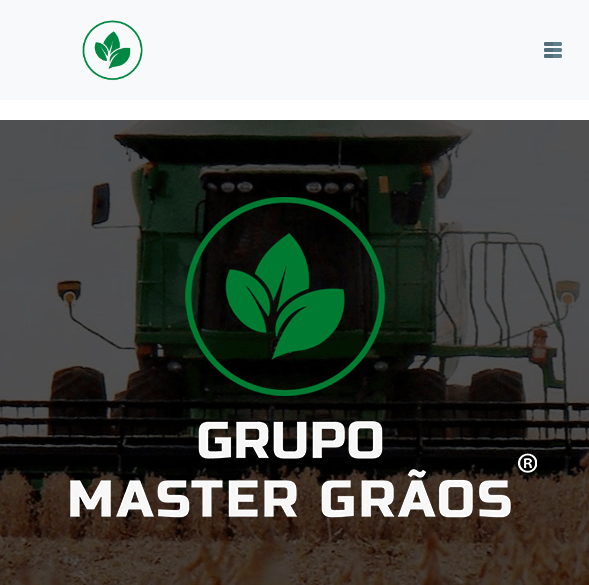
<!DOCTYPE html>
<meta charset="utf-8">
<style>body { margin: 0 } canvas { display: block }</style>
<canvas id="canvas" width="589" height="585"></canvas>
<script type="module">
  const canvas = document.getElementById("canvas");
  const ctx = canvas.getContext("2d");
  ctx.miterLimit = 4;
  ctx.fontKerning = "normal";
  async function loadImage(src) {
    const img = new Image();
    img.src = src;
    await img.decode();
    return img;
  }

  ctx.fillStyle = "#ffffff";
  ctx.fillRect(0, 0, 589, 585);
  ctx.fillStyle = "#f8f9fa";
  ctx.fillRect(0, 0, 589, 100);
  ctx.drawImage(await loadImage("img1.png"), 82, 20, 61, 61);
  ctx.drawImage(await loadImage("img2.png"), 544, 42, 18, 16);
  ctx.drawImage(await loadImage("img3.png"), 0, 120, 589, 465);
  ctx.drawImage(await loadImage("img4.png"), 70, 197, 467, 321);
</script>
